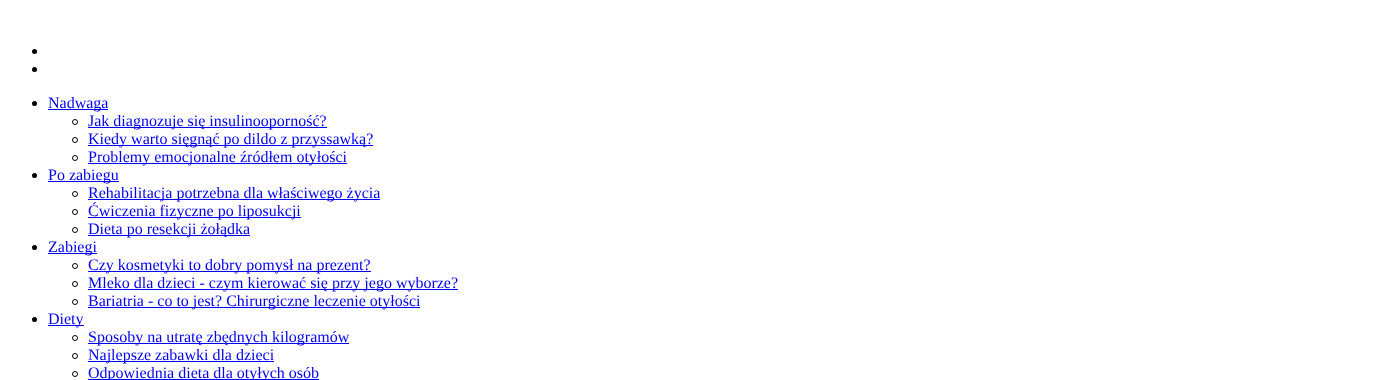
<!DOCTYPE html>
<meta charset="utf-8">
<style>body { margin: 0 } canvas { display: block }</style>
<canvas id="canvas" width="1395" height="380"></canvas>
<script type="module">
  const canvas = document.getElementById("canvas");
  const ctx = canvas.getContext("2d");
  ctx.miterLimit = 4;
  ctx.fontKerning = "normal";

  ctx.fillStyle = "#ffffff";
  ctx.fillRect(0, 0, 1395, 380);
  ctx.fillStyle = "#000000";
  ctx.beginPath();
  ctx.arc(34.5, 51.5, 2.5, 0, Math.PI * 2);
  ctx.fill();
  ctx.beginPath();
  ctx.arc(34.5, 69.5, 2.5, 0, Math.PI * 2);
  ctx.fill();
  ctx.beginPath();
  ctx.arc(34.5, 103.5, 2.5, 0, Math.PI * 2);
  ctx.fill();
  ctx.fillStyle = "#0000ee";
  ctx.fillRect(48, 109, 60, 1);
  ctx.font = "16px Liberation Serif";
  ctx.fillText("Nadwaga", 48, 108);
  ctx.beginPath();
  ctx.arc(75, 122, 2.5, 0, Math.PI * 2);
  ctx.strokeStyle = "#000000";
  ctx.stroke();
  ctx.fillRect(88, 127, 239, 1);
  ctx.fillText("Jak diagnozuje się insulinooporność?", 88, 126);
  ctx.beginPath();
  ctx.arc(75, 140, 2.5, 0, Math.PI * 2);
  ctx.stroke();
  ctx.fillRect(88, 145, 285, 1);
  ctx.fillText("Kiedy warto sięgnąć po dildo z przyssawką?", 88, 144);
  ctx.beginPath();
  ctx.arc(75, 158, 2.5, 0, Math.PI * 2);
  ctx.stroke();
  ctx.fillRect(88, 163, 259, 1);
  ctx.fillText("Problemy emocjonalne źródłem otyłości", 88, 162);
  ctx.fillStyle = "#000000";
  ctx.beginPath();
  ctx.arc(34.5, 175.5, 2.5, 0, Math.PI * 2);
  ctx.fill();
  ctx.fillStyle = "#0000ee";
  ctx.fillRect(48, 181, 71, 1);
  ctx.fillText("Po zabiegu", 48, 180);
  ctx.beginPath();
  ctx.arc(75, 194, 2.5, 0, Math.PI * 2);
  ctx.stroke();
  ctx.fillRect(88, 199, 292, 1);
  ctx.fillText("Rehabilitacja potrzebna dla właściwego życia", 88, 198);
  ctx.beginPath();
  ctx.arc(75, 212, 2.5, 0, Math.PI * 2);
  ctx.stroke();
  ctx.fillRect(88, 217, 213, 1);
  ctx.fillText("Ćwiczenia fizyczne po liposukcji", 88, 216);
  ctx.beginPath();
  ctx.arc(75, 230, 2.5, 0, Math.PI * 2);
  ctx.stroke();
  ctx.fillRect(88, 235, 162, 1);
  ctx.fillText("Dieta po resekcji żołądka", 88, 234);
  ctx.fillStyle = "#000000";
  ctx.beginPath();
  ctx.arc(34.5, 247.5, 2.5, 0, Math.PI * 2);
  ctx.fill();
  ctx.fillStyle = "#0000ee";
  ctx.fillRect(48, 253, 49, 1);
  ctx.fillText("Zabiegi", 48, 252);
  ctx.beginPath();
  ctx.arc(75, 266, 2.5, 0, Math.PI * 2);
  ctx.stroke();
  ctx.fillRect(88, 271, 283, 1);
  ctx.fillText("Czy kosmetyki to dobry pomysł na prezent?", 88, 270);
  ctx.beginPath();
  ctx.arc(75, 284, 2.5, 0, Math.PI * 2);
  ctx.stroke();
  ctx.fillRect(88, 289, 370, 1);
  ctx.fillText("Mleko dla dzieci - czym kierować się przy jego wyborze?", 88, 288);
  ctx.beginPath();
  ctx.arc(75, 302, 2.5, 0, Math.PI * 2);
  ctx.stroke();
  ctx.fillRect(88, 307, 332, 1);
  ctx.fillText("Bariatria - co to jest? Chirurgiczne leczenie otyłości", 88, 306);
  ctx.fillStyle = "#000000";
  ctx.beginPath();
  ctx.arc(34.5, 319.5, 2.5, 0, Math.PI * 2);
  ctx.fill();
  ctx.fillStyle = "#0000ee";
  ctx.fillRect(48, 325, 36, 1);
  ctx.fillText("Diety", 48, 324);
  ctx.beginPath();
  ctx.arc(75, 338, 2.5, 0, Math.PI * 2);
  ctx.stroke();
  ctx.fillRect(88, 343, 261, 1);
  ctx.fillText("Sposoby na utratę zbędnych kilogramów", 88, 342);
  ctx.beginPath();
  ctx.arc(75, 356, 2.5, 0, Math.PI * 2);
  ctx.stroke();
  ctx.fillRect(88, 361, 186, 1);
  ctx.fillText("Najlepsze zabawki dla dzieci", 88, 360);
  ctx.beginPath();
  ctx.arc(75, 374, 2.5, 0, Math.PI * 2);
  ctx.stroke();
  ctx.fillRect(88, 379, 231, 1);
  ctx.fillText("Odpowiednia dieta dla otyłych osób", 88, 378);
</script>
